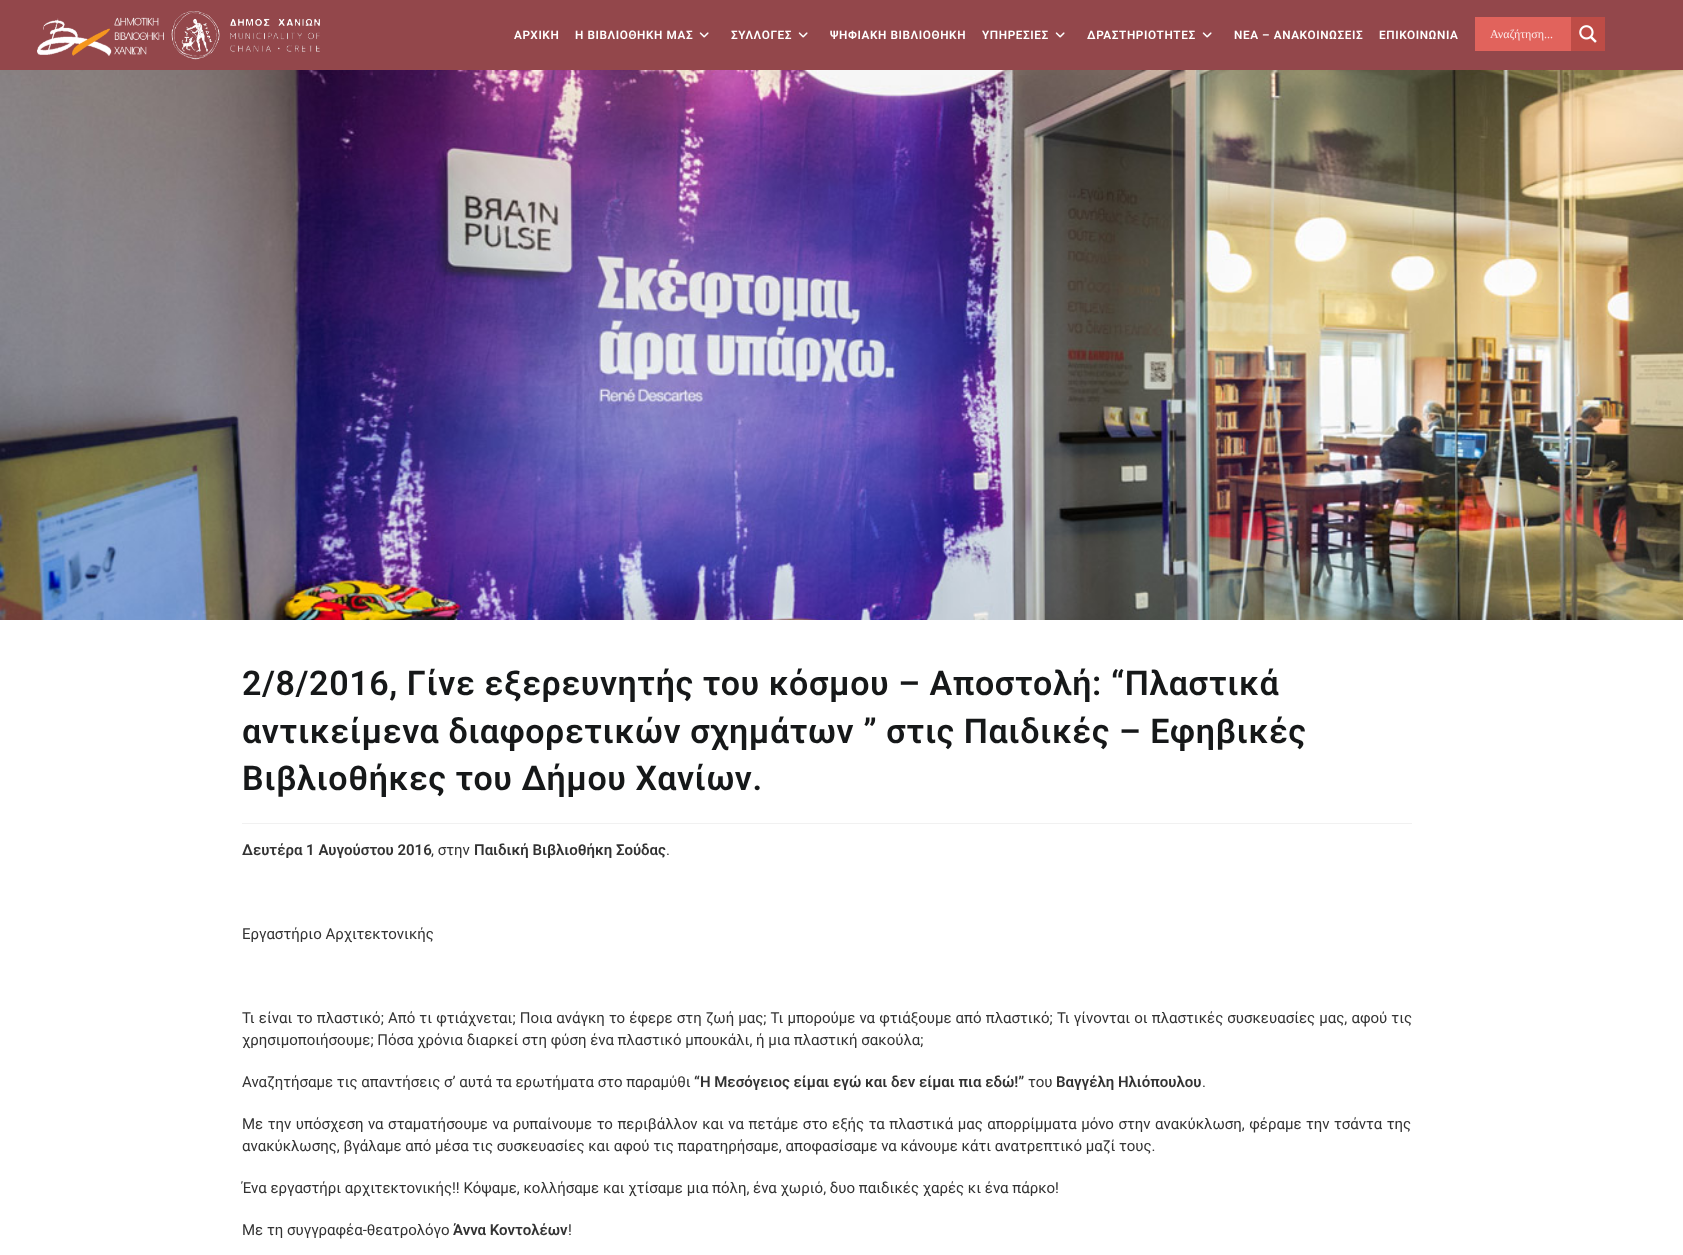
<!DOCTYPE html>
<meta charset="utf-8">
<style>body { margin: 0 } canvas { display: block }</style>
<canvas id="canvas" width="1683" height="1255"></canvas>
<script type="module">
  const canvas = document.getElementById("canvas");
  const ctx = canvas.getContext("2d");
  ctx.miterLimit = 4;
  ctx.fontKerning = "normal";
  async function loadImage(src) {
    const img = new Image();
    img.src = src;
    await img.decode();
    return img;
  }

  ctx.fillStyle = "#ffffff";
  ctx.fillRect(0, 0, 1683, 1255);
  ctx.fillStyle = "#93474b";
  ctx.fillRect(0, 0, 1683, 70);
  ctx.drawImage(await loadImage("img1.png"), 37, 11, 283, 49);
  ctx.letterSpacing = "0.6px";
  ctx.font = "600 11.75px Roboto";
  ctx.fillStyle = "#ffffff";
  ctx.fillText("ΑΡΧΙΚΗ", 514, 39);
  ctx.fillText("Η ΒΙΒΛΙΟΘΗΚΗ ΜΑΣ", 575, 39);
  ctx.drawImage(await loadImage("img2.png"), 699, 32, 10, 6);
  ctx.fillText("ΣΥΛΛΟΓΕΣ", 731, 39);
  ctx.drawImage(await loadImage("img2.png"), 798, 32, 10, 6);
  ctx.fillText("ΨΗΦΙΑΚΗ ΒΙΒΛΙΟΘΗΚΗ", 830, 39);
  ctx.fillText("ΥΠΗΡΕΣΙΕΣ", 982, 39);
  ctx.drawImage(await loadImage("img2.png"), 1055, 32, 10, 6);
  ctx.fillText("ΔΡΑΣΤΗΡΙΟΤΗΤΕΣ", 1087, 39);
  ctx.drawImage(await loadImage("img2.png"), 1202, 32, 10, 6);
  ctx.fillText("ΝΕΑ – ΑΝΑΚΟΙΝΩΣΕΙΣ", 1234, 39);
  ctx.fillText("ΕΠΙΚΟΙΝΩΝΙΑ", 1379, 39);
  ctx.fillStyle = "#e1635c";
  ctx.fillRect(1475, 17, 96, 34);
  ctx.letterSpacing = "0px";
  ctx.font = "12px Liberation Serif";
  ctx.fillStyle = "#fbe8e7";
  ctx.fillText("Αναζήτηση...", 1490, 38);
  ctx.fillStyle = "#be4c46";
  ctx.fillRect(1571, 17, 34, 34);
  ctx.drawImage(await loadImage("img3.png"), 1579, 25, 18, 18);
  ctx.drawImage(await loadImage("img4.png"), 0, 70, 1683, 550);
  ctx.fillStyle = "#f1f1f1";
  ctx.fillRect(242, 823, 1170, 1);
  ctx.letterSpacing = "0.6px";
  ctx.font = "600 34px Roboto";
  ctx.fillStyle = "#161819";
  ctx.fillText("2/8/2016, Γίνε εξερευνητής του κόσμου – Αποστολή: “Πλαστικά", 242, 695);
  ctx.fillText("αντικείμενα διαφορετικών σχημάτων ” στις Παιδικές – Εφηβικές", 242, 743);
  ctx.fillText("Βιβλιοθήκες του Δήμου Χανίων.", 242, 790);
  ctx.letterSpacing = "0px";
  ctx.font = "600 15px Roboto";
  ctx.fillStyle = "#333333";
  ctx.fillText("Δευτέρα 1 Αυγούστου 2016", 242, 855);
  ctx.font = "15px Roboto";
  ctx.fillText(", στην", 431, 855);
  ctx.font = "600 15px Roboto";
  ctx.fillText("Παιδική Βιβλιοθήκη Σούδας", 474, 855);
  ctx.font = "15px Roboto";
  ctx.fillText(".", 666, 855);
  ctx.fillText("Εργαστήριο Αρχιτεκτονικής", 242, 939);
  ctx.wordSpacing = "0.4px";
  ctx.fillText("Τι είναι το πλαστικό; Από τι φτιάχνεται; Ποια ανάγκη το έφερε στη ζωή μας; Τι μπορούμε να φτιάξουμε από πλαστικό; Τι γίνονται οι πλαστικές συσκευασίες μας, αφού τις", 242, 1023);
  ctx.wordSpacing = "0px";
  ctx.fillText("χρησιμοποιήσουμε; Πόσα χρόνια διαρκεί στη φύση ένα πλαστικό μπουκάλι, ή μια πλαστική σακούλα;", 242, 1045);
  ctx.fillText("Αναζητήσαμε τις απαντήσεις σ’ αυτά τα ερωτήματα στο παραμύθι", 242, 1087);
  ctx.font = "600 15px Roboto";
  ctx.fillText("“Η Μεσόγειος είμαι εγώ και δεν είμαι πια εδώ!”", 694, 1087);
  ctx.font = "15px Roboto";
  ctx.fillText("του", 1028, 1087);
  ctx.font = "600 15px Roboto";
  ctx.fillText("Βαγγέλη Ηλιόπουλου", 1056, 1087);
  ctx.font = "15px Roboto";
  ctx.fillText(".", 1202, 1087);
  ctx.wordSpacing = "0.8px";
  ctx.fillText("Με την υπόσχεση να σταματήσουμε να ρυπαίνουμε το περιβάλλον και να πετάμε στο εξής τα πλαστικά μας απορρίμματα μόνο στην ανακύκλωση, φέραμε την τσάντα της", 242, 1129);
  ctx.wordSpacing = "0px";
  ctx.fillText("ανακύκλωσης, βγάλαμε από μέσα τις συσκευασίες και αφού τις παρατηρήσαμε, αποφασίσαμε να κάνουμε κάτι ανατρεπτικό μαζί τους.", 242, 1151);
  ctx.fillText("Ένα εργαστήρι αρχιτεκτονικής!! Κόψαμε, κολλήσαμε και χτίσαμε μια πόλη, ένα χωριό, δυο παιδικές χαρές κι ένα πάρκο!", 242, 1193);
  ctx.fillText("Με τη συγγραφέα-θεατρολόγο", 242, 1235);
  ctx.font = "600 15px Roboto";
  ctx.fillText("Άννα Κοντολέων", 453, 1235);
  ctx.font = "15px Roboto";
  ctx.fillText("!", 568, 1235);
</script>
